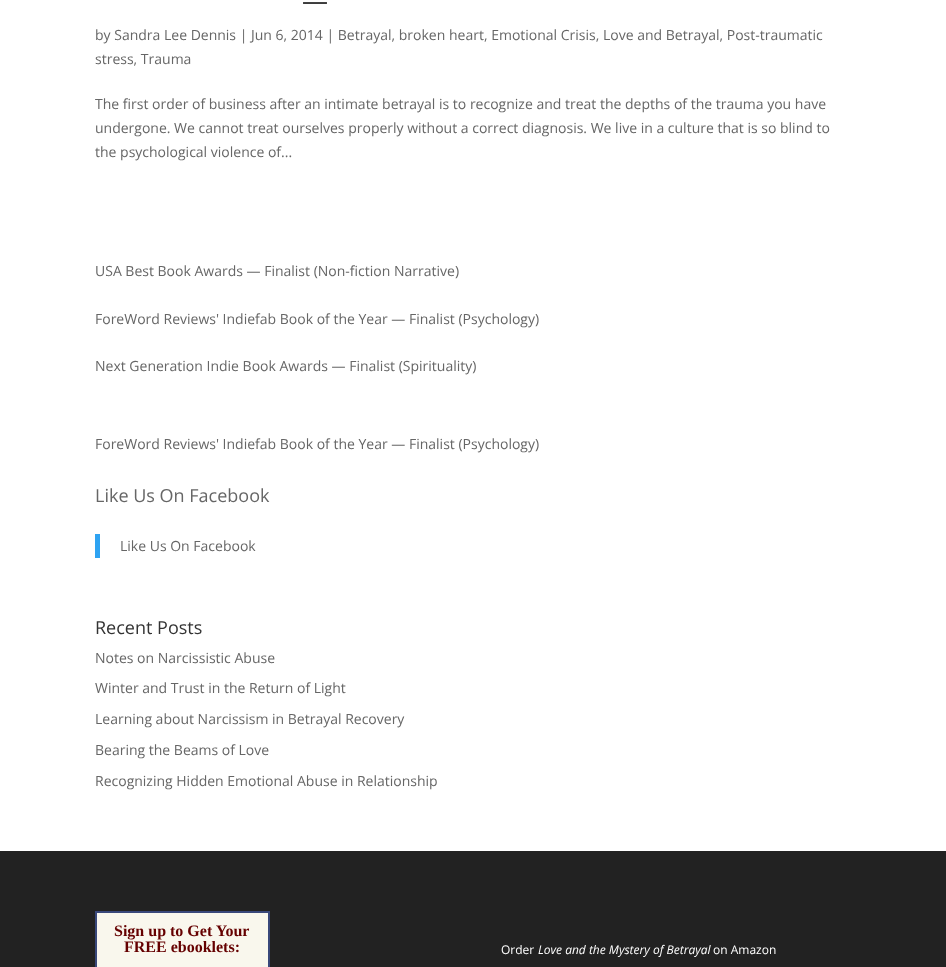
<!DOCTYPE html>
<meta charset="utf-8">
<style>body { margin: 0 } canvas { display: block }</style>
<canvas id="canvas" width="946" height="967"></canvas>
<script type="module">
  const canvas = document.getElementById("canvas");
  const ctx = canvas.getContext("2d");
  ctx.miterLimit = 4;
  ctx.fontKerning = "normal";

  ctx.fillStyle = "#ffffff";
  ctx.fillRect(0, 0, 946, 967);
  ctx.font = "26px Open Sans";
  ctx.fillStyle = "#333333";
  ctx.fillText("—", 302, 10);
  ctx.font = "14px Open Sans";
  ctx.fillStyle = "#666666";
  ctx.fillText("by Sandra Lee Dennis | Jun 6, 2014 | Betrayal, broken heart, Emotional Crisis, Love and Betrayal, Post-traumatic", 95, 40);
  ctx.fillText("stress, Trauma", 95, 64);
  ctx.fillText("The first order of business after an intimate betrayal is to recognize and treat the depths of the trauma you have", 95, 109);
  ctx.fillText("undergone. We cannot treat ourselves properly without a correct diagnosis. We live in a culture that is so blind to", 95, 133);
  ctx.fillText("the psychological violence of...", 95, 157);
  ctx.fillText("USA Best Book Awards — Finalist (Non-fiction Narrative)", 95, 276);
  ctx.fillText("ForeWord Reviews' Indiefab Book of the Year — Finalist (Psychology)", 95, 324);
  ctx.fillText("Next Generation Indie Book Awards — Finalist (Spirituality)", 95, 371);
  ctx.fillText("ForeWord Reviews' Indiefab Book of the Year — Finalist (Psychology)", 95, 449);
  ctx.font = "18px Open Sans";
  ctx.fillText("Like Us On Facebook", 95, 502);
  ctx.fillStyle = "#2ea3f2";
  ctx.fillRect(95, 534, 5, 24);
  ctx.font = "14px Open Sans";
  ctx.fillStyle = "#666666";
  ctx.fillText("Like Us On Facebook", 120, 551);
  ctx.font = "18px Open Sans";
  ctx.fillStyle = "#333333";
  ctx.fillText("Recent Posts", 95, 634);
  ctx.font = "14px Open Sans";
  ctx.fillStyle = "#666666";
  ctx.fillText("Notes on Narcissistic Abuse", 95, 663);
  ctx.fillText("Winter and Trust in the Return of Light", 95, 693);
  ctx.fillText("Learning about Narcissism in Betrayal Recovery", 95, 724);
  ctx.fillText("Bearing the Beams of Love", 95, 755);
  ctx.fillText("Recognizing Hidden Emotional Abuse in Relationship", 95, 786);
  ctx.fillStyle = "#222222";
  ctx.fillRect(0, 851, 946, 116);
  ctx.fillStyle = "#f9f7ed";
  ctx.beginPath();
  ctx.rect(96, 912, 173, 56);
  ctx.fill();
  ctx.strokeStyle = "#39487a";
  ctx.lineWidth = 2;
  ctx.stroke();
  ctx.font = "bold 16px Liberation Serif";
  ctx.fillStyle = "#650000";
  ctx.fillText("Sign up to Get Your", 114, 936);
  ctx.fillText("FREE ebooklets:", 124, 952);
  ctx.font = "12px Open Sans";
  ctx.fillStyle = "#ffffff";
  ctx.fillText("Order", 501, 954);
  ctx.font = "italic 12px Open Sans";
  ctx.fillText("Love and the Mystery of Betrayal", 538, 954);
  ctx.font = "12px Open Sans";
  ctx.fillText("on Amazon", 713, 954);
</script>
